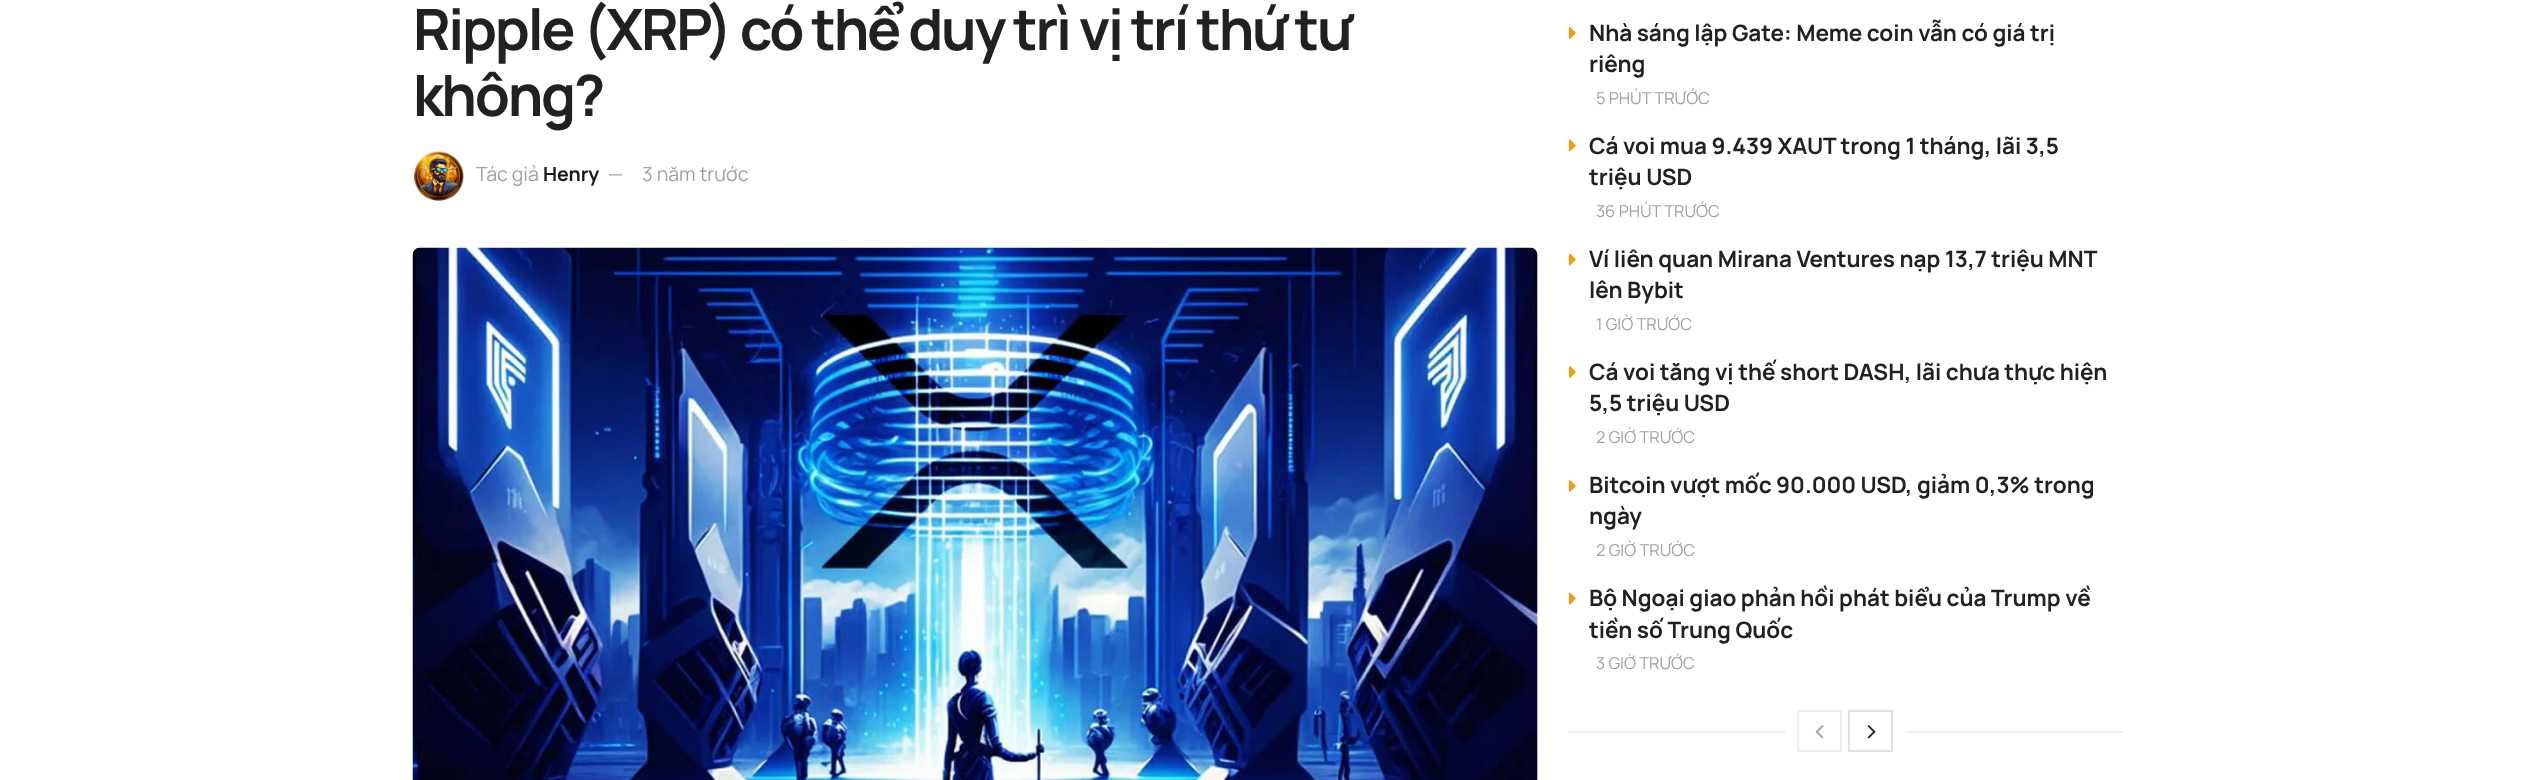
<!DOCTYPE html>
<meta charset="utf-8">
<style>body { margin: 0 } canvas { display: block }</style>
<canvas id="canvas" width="2534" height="780"></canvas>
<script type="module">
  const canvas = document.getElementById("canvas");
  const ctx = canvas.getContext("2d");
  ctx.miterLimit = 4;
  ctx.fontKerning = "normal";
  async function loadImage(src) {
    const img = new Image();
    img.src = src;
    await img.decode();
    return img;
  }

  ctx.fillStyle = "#ffffff";
  ctx.fillRect(0, 0, 2534, 780);
  ctx.letterSpacing = "-2.3px";
  ctx.font = "bold 57px Manrope";
  ctx.fillStyle = "#212121";
  ctx.fillText("Ripple (XRP) có thể duy trì vị trí thứ tư", 413, 50);
  ctx.fillText("không?", 413, 116);
  ctx.drawImage(await loadImage("img1.png"), 414, 151, 50, 50);
  ctx.letterSpacing = "0px";
  ctx.font = "19.5px Manrope";
  ctx.fillStyle = "#a0a0a0";
  ctx.fillText("Tác giả", 476, 181);
  ctx.font = "bold 19.5px Manrope";
  ctx.fillStyle = "#191818";
  ctx.fillText("Henry", 543, 181);
  ctx.font = "19.5px Manrope";
  ctx.fillStyle = "#a0a0a0";
  ctx.fillText("—", 608, 181);
  ctx.fillText("3 năm trước", 642, 181);
  ctx.fillStyle = "#f7f7f7";
  ctx.beginPath();
  ctx.moveTo(421, 248);
  ctx.lineTo(1530, 248);
  ctx.bezierCurveTo(1534.5, 248, 1538, 251.5, 1538, 256);
  ctx.lineTo(1538, 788);
  ctx.lineTo(413, 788);
  ctx.lineTo(413, 256);
  ctx.bezierCurveTo(413, 251.5, 416.5, 248, 421, 248);
  ctx.closePath();
  ctx.fill();
  ctx.drawImage(await loadImage("img3.png"), 413, 248, 4, 5);
  ctx.drawImage(await loadImage("img2.png"), 412, 247, 1126, 533);
  ctx.drawImage(await loadImage("img4.png"), 1569, 27, 7, 12);
  ctx.font = "bold 22.5px Manrope";
  ctx.fillStyle = "#212121";
  ctx.fillText("Nhà sáng lập Gate: Meme coin vẫn có giá trị", 1589, 41);
  ctx.fillText("riêng", 1589, 72);
  ctx.font = "16.5px Manrope";
  ctx.fillStyle = "#a0a0a0";
  ctx.fillText("5 PHÚT TRƯỚC", 1596, 104);
  ctx.drawImage(await loadImage("img5.png"), 1569, 139, 7, 13);
  ctx.font = "bold 22.5px Manrope";
  ctx.fillStyle = "#212121";
  ctx.fillText("Cá voi mua 9.439 XAUT trong 1 tháng, lãi 3,5", 1589, 154);
  ctx.fillText("triệu USD", 1589, 185);
  ctx.font = "16.5px Manrope";
  ctx.fillStyle = "#a0a0a0";
  ctx.fillText("36 PHÚT TRƯỚC", 1596, 217);
  ctx.drawImage(await loadImage("img5.png"), 1569, 253, 7, 13);
  ctx.font = "bold 22.5px Manrope";
  ctx.fillStyle = "#212121";
  ctx.fillText("Ví liên quan Mirana Ventures nạp 13,7 triệu MNT", 1589, 267);
  ctx.fillText("lên Bybit", 1589, 298);
  ctx.font = "16.5px Manrope";
  ctx.fillStyle = "#a0a0a0";
  ctx.fillText("1 GIỜ TRƯỚC", 1596, 330);
  ctx.drawImage(await loadImage("img4.png"), 1569, 366, 7, 12);
  ctx.font = "bold 22.5px Manrope";
  ctx.fillStyle = "#212121";
  ctx.fillText("Cá voi tăng vị thế short DASH, lãi chưa thực hiện", 1589, 380);
  ctx.fillText("5,5 triệu USD", 1589, 411);
  ctx.font = "16.5px Manrope";
  ctx.fillStyle = "#a0a0a0";
  ctx.fillText("2 GIỜ TRƯỚC", 1596, 443);
  ctx.drawImage(await loadImage("img4.png"), 1569, 480, 7, 12);
  ctx.font = "bold 22.5px Manrope";
  ctx.fillStyle = "#212121";
  ctx.fillText("Bitcoin vượt mốc 90.000 USD, giảm 0,3% trong", 1589, 493);
  ctx.fillText("ngày", 1589, 524);
  ctx.font = "16.5px Manrope";
  ctx.fillStyle = "#a0a0a0";
  ctx.fillText("2 GIỜ TRƯỚC", 1596, 556);
  ctx.drawImage(await loadImage("img5.png"), 1569, 592, 7, 13);
  ctx.font = "bold 22.5px Manrope";
  ctx.fillStyle = "#212121";
  ctx.fillText("Bộ Ngoại giao phản hồi phát biểu của Trump về", 1589, 606);
  ctx.fillText("tiền số Trung Quốc", 1589, 638);
  ctx.font = "16.5px Manrope";
  ctx.fillStyle = "#a0a0a0";
  ctx.fillText("3 GIỜ TRƯỚC", 1596, 669);
  ctx.fillStyle = "#eeeeee";
  ctx.fillRect(1568, 731, 217, 2);
  ctx.strokeStyle = "#eeeeee";
  ctx.lineWidth = 2;
  ctx.strokeRect(1798, 711, 43, 40);
  ctx.drawImage(await loadImage("img6.png"), 1815, 725, 9, 14);
  ctx.strokeStyle = "#e0e0e0";
  ctx.strokeRect(1849, 711, 43, 40);
  ctx.drawImage(await loadImage("img7.png"), 1867, 725, 9, 14);
  ctx.fillRect(1905, 731, 218, 2);
</script>
